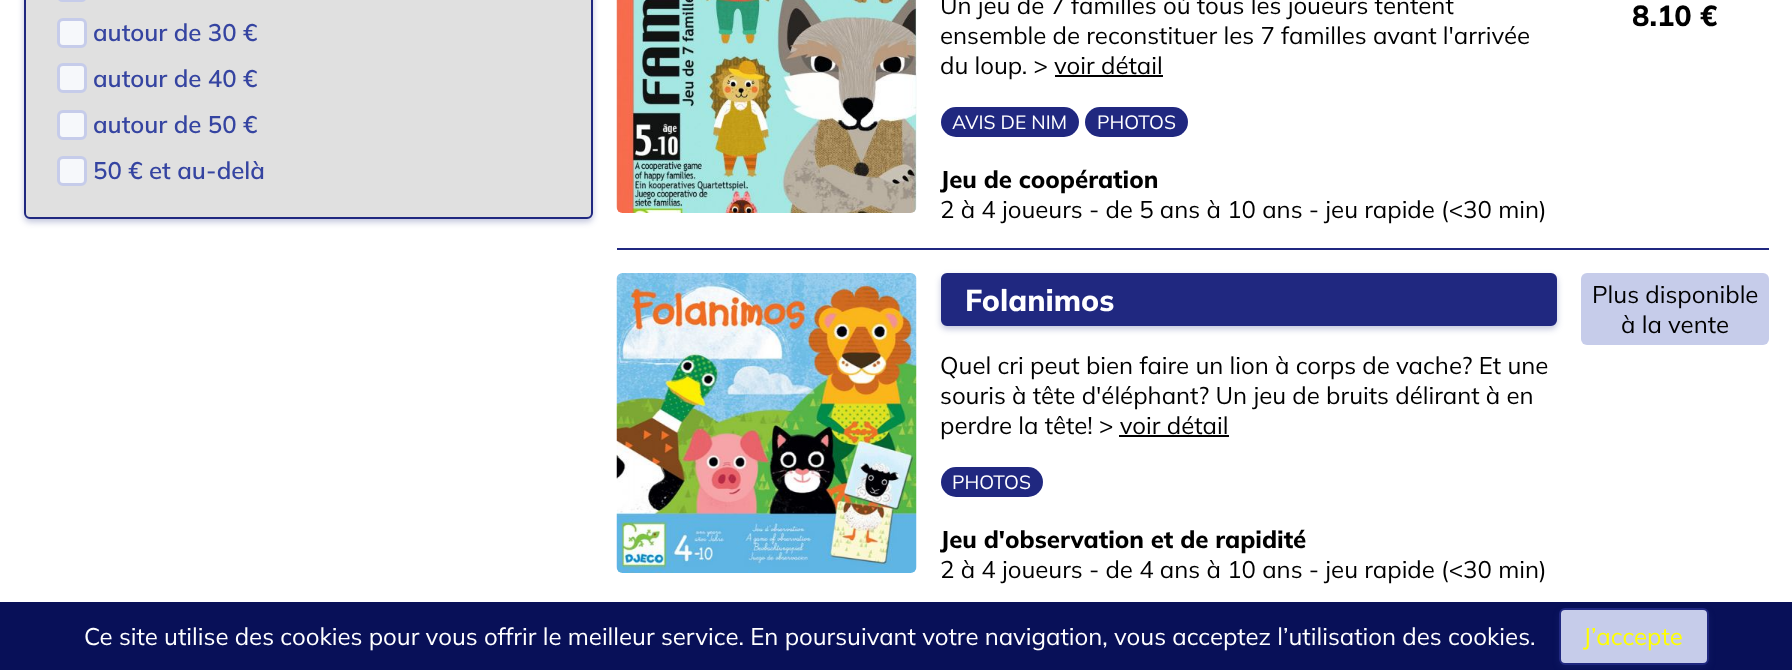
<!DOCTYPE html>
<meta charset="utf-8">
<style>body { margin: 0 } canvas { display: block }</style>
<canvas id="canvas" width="1792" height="670"></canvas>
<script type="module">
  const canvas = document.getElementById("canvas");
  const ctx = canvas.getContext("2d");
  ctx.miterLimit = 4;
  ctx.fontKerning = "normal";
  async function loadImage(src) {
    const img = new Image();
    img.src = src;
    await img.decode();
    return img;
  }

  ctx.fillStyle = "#ffffff";
  ctx.fillRect(0, 0, 1792, 670);
  ctx.fillStyle = "rgba(32, 48, 128, 0.28)";
  ctx.filter = "blur(3px)";
  ctx.beginPath();
  ctx.roundRect(24, -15, 569, 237, 6);
  ctx.fill();
  ctx.filter = "none";
  ctx.fillStyle = "#e0e0e0";
  ctx.beginPath();
  ctx.roundRect(25, -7, 567, 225, 5);
  ctx.fill();
  ctx.strokeStyle = "#202880";
  ctx.lineWidth = 2;
  ctx.stroke();
  ctx.beginPath();
  ctx.roundRect(58.5, -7.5, 27, 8, 4.5);
  ctx.strokeStyle = "#c6ccea";
  ctx.lineWidth = 3;
  ctx.stroke();
  ctx.fillStyle = "#f6f8fb";
  ctx.beginPath();
  ctx.roundRect(58.5, 19.5, 27, 27, 4.5);
  ctx.fill();
  ctx.stroke();
  ctx.font = "600 24px Mulish";
  ctx.fillStyle = "#3544a1";
  ctx.fillText("autour de 30 €", 93, 41);
  ctx.fillStyle = "#f6f8fb";
  ctx.beginPath();
  ctx.roundRect(58.5, 64.5, 27, 27, 4.5);
  ctx.fill();
  ctx.stroke();
  ctx.fillStyle = "#3544a1";
  ctx.fillText("autour de 40 €", 93, 87);
  ctx.fillStyle = "#f6f8fb";
  ctx.beginPath();
  ctx.roundRect(58.5, 111.5, 27, 27, 4.5);
  ctx.fill();
  ctx.stroke();
  ctx.fillStyle = "#3544a1";
  ctx.fillText("autour de 50 €", 93, 133);
  ctx.fillStyle = "#f6f8fb";
  ctx.beginPath();
  ctx.roundRect(58.5, 157.5, 27, 27, 4.5);
  ctx.fill();
  ctx.stroke();
  ctx.fillStyle = "#3544a1";
  ctx.fillText("50 € et au-delà", 93, 179);
  ctx.fillStyle = "#202880";
  ctx.fillRect(617, 248, 1152, 2);
  ctx.drawImage(await loadImage("img1.png"), 616, 0, 301, 213);
  ctx.font = "24px Mulish";
  ctx.fillStyle = "#000000";
  ctx.fillText("Un jeu de 7 familles où tous les joueurs tentent", 940, 14);
  ctx.fillText("ensemble de reconstituer les 7 familles avant l'arrivée", 940, 44);
  ctx.fillText("du loup. > voir détail", 940, 74);
  ctx.fillRect(1055, 75, 108, 2);
  ctx.fillStyle = "#202880";
  ctx.beginPath();
  ctx.roundRect(941, 107, 138, 30, 15);
  ctx.fill();
  ctx.font = "19.25px Mulish";
  ctx.fillStyle = "#ffffff";
  ctx.fillText("AVIS DE NIM", 952, 129);
  ctx.fillStyle = "#202880";
  ctx.beginPath();
  ctx.roundRect(1085, 107, 103, 30, 15);
  ctx.fill();
  ctx.fillStyle = "#ffffff";
  ctx.fillText("PHOTOS", 1097, 129);
  ctx.font = "800 24px Mulish";
  ctx.fillStyle = "#000000";
  ctx.fillText("Jeu de coopération", 940, 188);
  ctx.font = "24px Mulish";
  ctx.fillText("2 à 4 joueurs - de 5 ans à 10 ans - jeu rapide (<30 min)", 940, 218);
  ctx.font = "800 29px Mulish";
  ctx.fillText("8.10 €", 1632, 26);
  ctx.drawImage(await loadImage("img2.png"), 616, 273, 301, 300);
  ctx.fillStyle = "rgba(32, 48, 128, 0.28)";
  ctx.filter = "blur(3px)";
  ctx.beginPath();
  ctx.roundRect(941, 276, 616, 53, 6);
  ctx.fill();
  ctx.filter = "none";
  ctx.fillStyle = "#202880";
  ctx.beginPath();
  ctx.roundRect(942, 274, 614, 51, 5);
  ctx.fill();
  ctx.strokeStyle = "#202880";
  ctx.lineWidth = 2;
  ctx.stroke();
  ctx.font = "800 30px Mulish";
  ctx.fillStyle = "#ffffff";
  ctx.fillText("Folanimos", 965, 311);
  ctx.font = "24px Mulish";
  ctx.fillStyle = "#000000";
  ctx.fillText("Quel cri peut bien faire un lion à corps de vache? Et une", 940, 374);
  ctx.fillText("souris à tête d'éléphant? Un jeu de bruits délirant à en", 940, 404);
  ctx.fillText("perdre la tête! > voir détail", 940, 434);
  ctx.fillRect(1119, 435, 110, 2);
  ctx.fillStyle = "#202880";
  ctx.beginPath();
  ctx.roundRect(941, 467, 102, 30, 15);
  ctx.fill();
  ctx.font = "19.25px Mulish";
  ctx.fillStyle = "#ffffff";
  ctx.fillText("PHOTOS", 952, 489);
  ctx.font = "800 24px Mulish";
  ctx.fillStyle = "#000000";
  ctx.fillText("Jeu d'observation et de rapidité", 940, 548);
  ctx.font = "24px Mulish";
  ctx.fillText("2 à 4 joueurs - de 4 ans à 10 ans - jeu rapide (<30 min)", 940, 578);
  ctx.fillStyle = "#c6ccea";
  ctx.beginPath();
  ctx.roundRect(1581, 273, 188, 72, 6);
  ctx.fill();
  ctx.fillStyle = "#000000";
  ctx.fillText("Plus disponible", 1592, 303);
  ctx.fillText("à la vente", 1621, 333);
  ctx.fillStyle = "#081058";
  ctx.fillRect(0, 602, 1792, 68);
  ctx.fillStyle = "#ffffff";
  ctx.fillText("Ce site utilise des cookies pour vous offrir le meilleur service. En poursuivant votre navigation, vous acceptez l’utilisation des cookies.", 84, 645);
  ctx.fillStyle = "rgba(32, 48, 128, 0.28)";
  ctx.filter = "blur(3px)";
  ctx.beginPath();
  ctx.roundRect(1559, 611, 150, 57, 6);
  ctx.fill();
  ctx.filter = "none";
  ctx.fillStyle = "#c6ccea";
  ctx.beginPath();
  ctx.roundRect(1560, 609, 148, 55, 5);
  ctx.fill();
  ctx.stroke();
  ctx.fillStyle = "#ffff00";
  ctx.fillText("J’accepte", 1583, 645);
</script>
